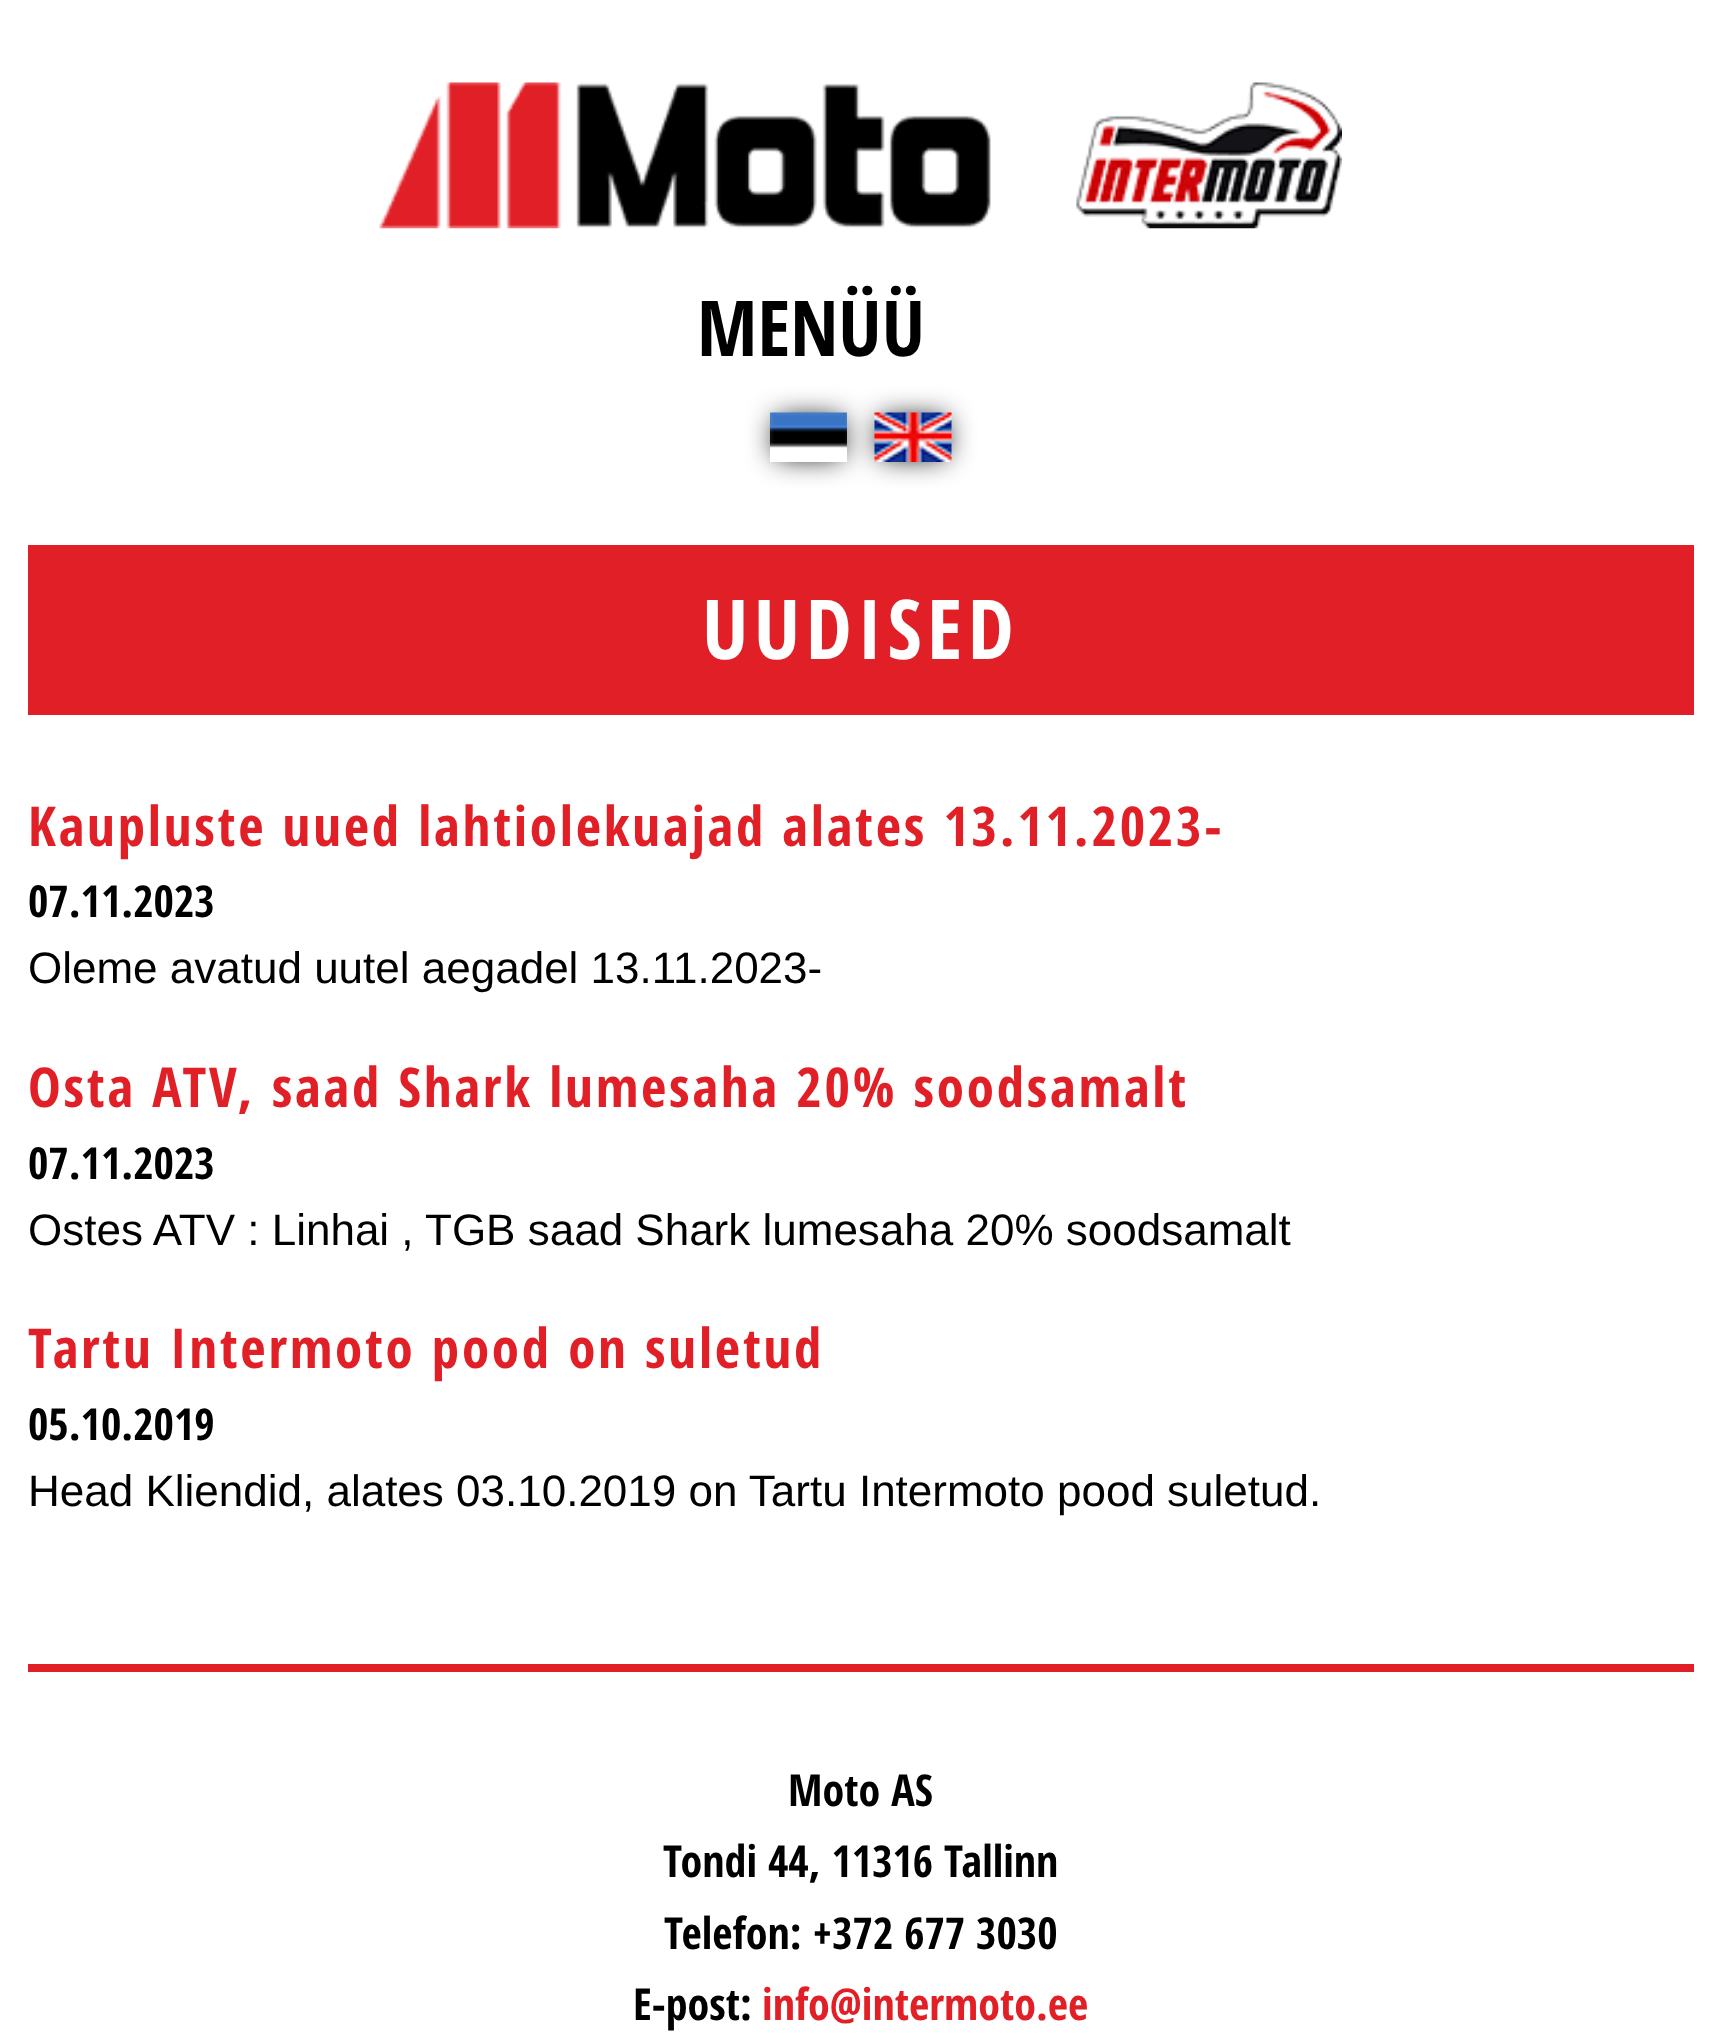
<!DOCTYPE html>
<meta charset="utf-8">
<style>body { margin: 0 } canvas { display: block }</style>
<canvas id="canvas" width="1719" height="2035"></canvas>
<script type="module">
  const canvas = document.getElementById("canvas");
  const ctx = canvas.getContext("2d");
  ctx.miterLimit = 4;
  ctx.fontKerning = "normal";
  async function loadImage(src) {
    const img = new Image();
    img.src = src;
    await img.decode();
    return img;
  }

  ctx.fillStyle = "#ffffff";
  ctx.fillRect(0, 0, 1719, 2035);
  ctx.drawImage(await loadImage("img1.png"), 379, 82, 963, 147);
  ctx.font = "bold 77px Open Sans Condensed";
  ctx.fillStyle = "#000000";
  ctx.fillText("MENÜÜ", 697, 356);
  ctx.save();
  ctx.beginPath();
  ctx.moveTo(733, 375);
  ctx.lineTo(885, 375);
  ctx.lineTo(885, 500);
  ctx.lineTo(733, 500);
  ctx.closePath();
  ctx.moveTo(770, 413);
  ctx.lineTo(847, 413);
  ctx.lineTo(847, 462);
  ctx.lineTo(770, 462);
  ctx.closePath();
  ctx.clip("evenodd");
  ctx.filter = "blur(14px)";
  ctx.beginPath();
  ctx.rect(776, 418, 66, 39);
  ctx.fill();
  ctx.filter = "none";
  ctx.restore();
  ctx.drawImage(await loadImage("img2.png"), 770, 412, 77, 36);
  ctx.filter = "blur(14px)";
  ctx.beginPath();
  ctx.rect(880, 418, 66, 39);
  ctx.fill();
  ctx.filter = "none";
  ctx.drawImage(await loadImage("img3.png"), 874, 412, 78, 50);
  ctx.fillStyle = "#e11f26";
  ctx.fillRect(28, 545, 1666, 170);
  ctx.letterSpacing = "5.5px";
  ctx.font = "bold 82.5px Open Sans Condensed";
  ctx.fillStyle = "#ffffff";
  ctx.fillText("UUDISED", 702, 659);
  ctx.letterSpacing = "2.75px";
  ctx.font = "bold 55px Open Sans Condensed";
  ctx.fillStyle = "#e11f26";
  ctx.fillText("Kaupluste uued lahtiolekuajad alates 13.11.2023-", 28, 846);
  ctx.letterSpacing = "0px";
  ctx.font = "bold 44px Open Sans Condensed";
  ctx.fillStyle = "#000000";
  ctx.fillText("07.11.2023", 28, 917);
  ctx.font = "44px Liberation Sans";
  ctx.fillText("Oleme avatud uutel aegadel 13.11.2023-", 28, 983);
  ctx.letterSpacing = "2.75px";
  ctx.font = "bold 55px Open Sans Condensed";
  ctx.fillStyle = "#e11f26";
  ctx.fillText("Osta ATV, saad Shark lumesaha 20% soodsamalt", 28, 1107);
  ctx.letterSpacing = "0px";
  ctx.font = "bold 44px Open Sans Condensed";
  ctx.fillStyle = "#000000";
  ctx.fillText("07.11.2023", 28, 1179);
  ctx.font = "44px Liberation Sans";
  ctx.fillText("Ostes ATV : Linhai , TGB saad Shark lumesaha 20% soodsamalt", 28, 1245);
  ctx.letterSpacing = "2.75px";
  ctx.font = "bold 55px Open Sans Condensed";
  ctx.fillStyle = "#e11f26";
  ctx.fillText("Tartu Intermoto pood on suletud", 28, 1368);
  ctx.letterSpacing = "0px";
  ctx.font = "bold 44px Open Sans Condensed";
  ctx.fillStyle = "#000000";
  ctx.fillText("05.10.2019", 28, 1440);
  ctx.font = "44px Liberation Sans";
  ctx.fillText("Head Kliendid, alates 03.10.2019 on Tartu Intermoto pood suletud.", 28, 1506);
  ctx.fillStyle = "#e11f26";
  ctx.fillRect(28, 1664, 1666, 8);
  ctx.font = "bold 44px Open Sans Condensed";
  ctx.fillStyle = "#000000";
  ctx.fillText("Moto AS", 788, 1806);
  ctx.fillText("Tondi 44, 11316 Tallinn", 663, 1877);
  ctx.fillText("Telefon: +372 677 3030", 664, 1949);
  ctx.fillText("E-post:", 633, 2020);
  ctx.fillStyle = "#e11f26";
  ctx.fillText("info@intermoto.ee", 762, 2020);
</script>
